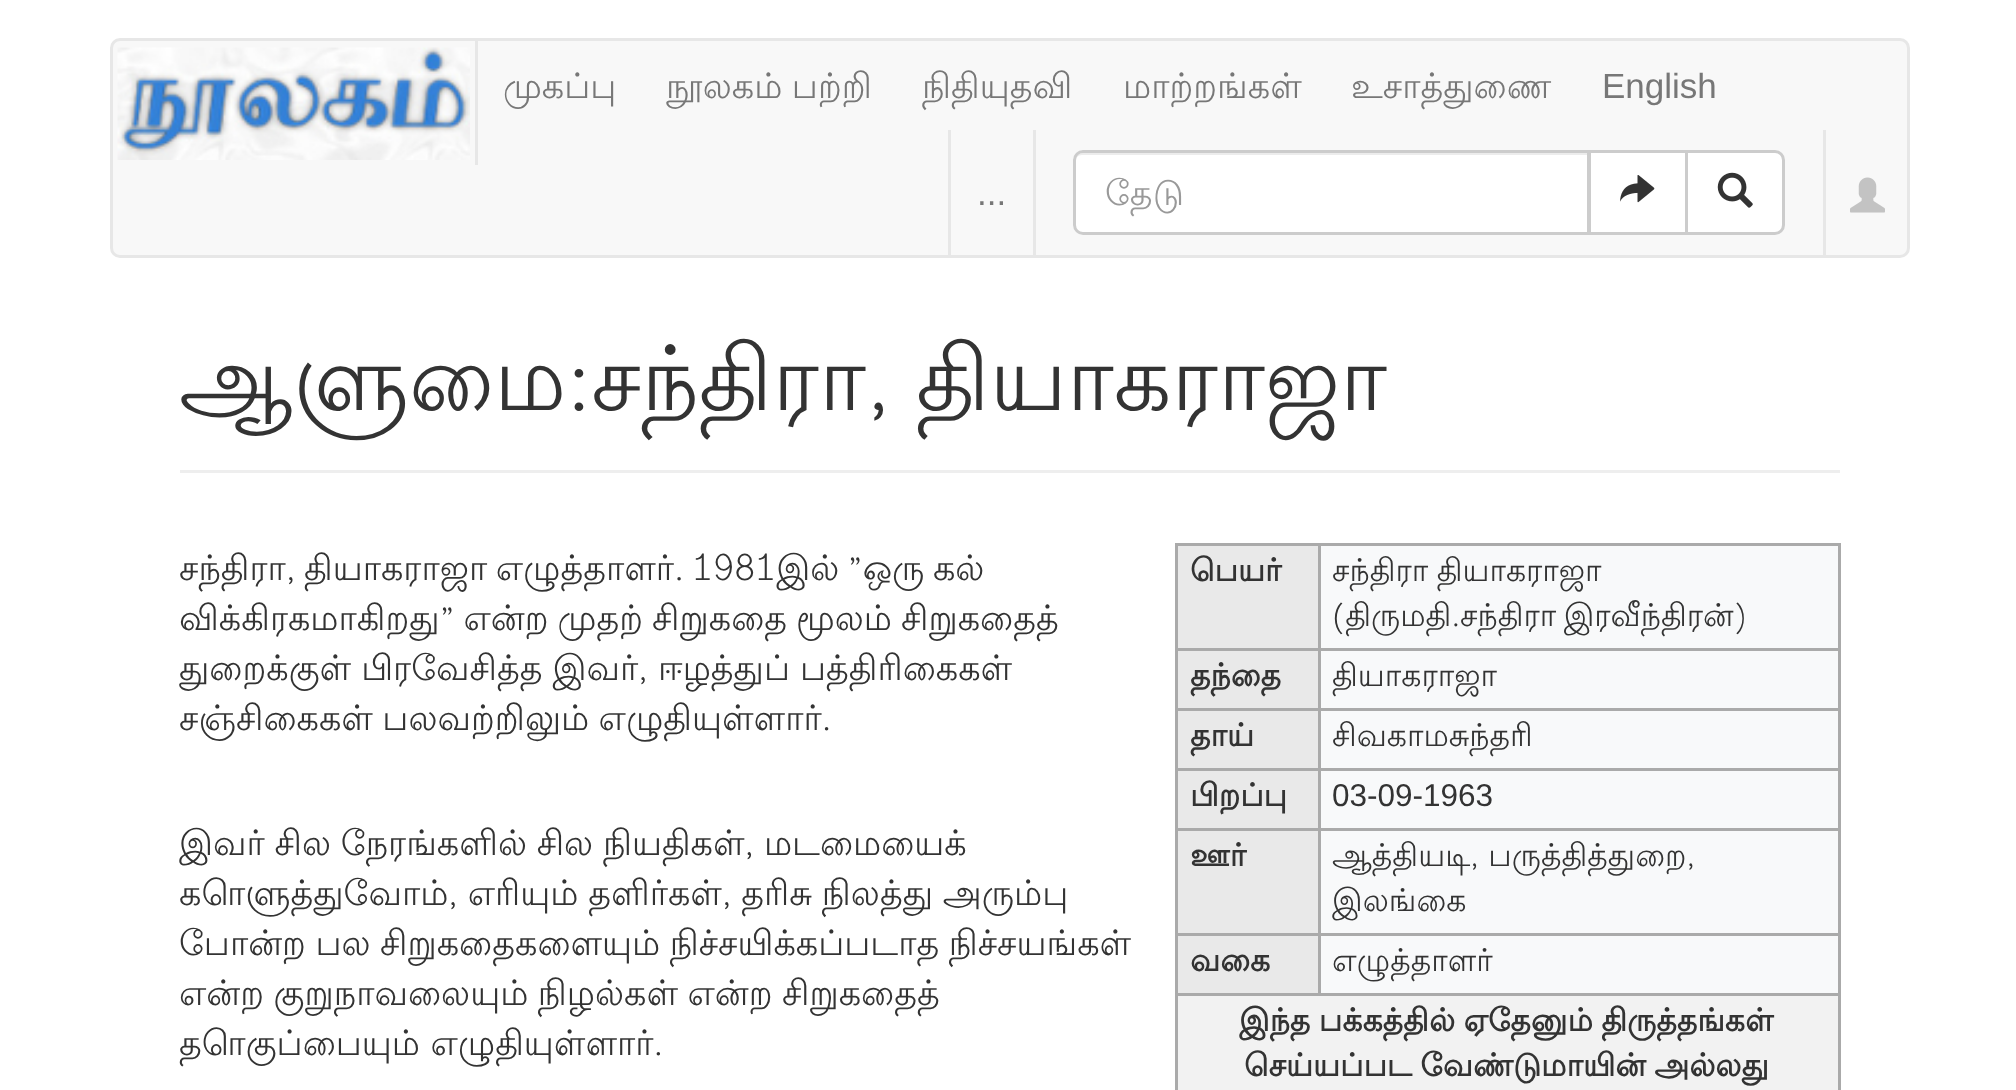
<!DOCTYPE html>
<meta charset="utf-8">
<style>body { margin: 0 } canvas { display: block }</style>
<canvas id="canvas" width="2016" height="1090"></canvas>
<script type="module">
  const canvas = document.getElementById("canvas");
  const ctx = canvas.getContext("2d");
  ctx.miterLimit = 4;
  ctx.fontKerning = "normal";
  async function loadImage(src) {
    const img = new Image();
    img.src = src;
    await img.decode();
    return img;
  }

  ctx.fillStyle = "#ffffff";
  ctx.fillRect(0, 0, 2016, 1090);
  ctx.fillStyle = "#f8f8f8";
  ctx.beginPath();
  ctx.roundRect(111.5, 39.5, 1797, 217, 8.5);
  ctx.fill();
  ctx.strokeStyle = "#e7e7e7";
  ctx.lineWidth = 3;
  ctx.stroke();
  ctx.fillStyle = "#e7e7e7";
  ctx.fillRect(475, 40, 3, 125);
  ctx.drawImage(await loadImage("img1.png"), 117, 47, 353, 113);
  ctx.font = "35px Lohit Tamil";
  ctx.fillStyle = "#777777";
  ctx.fillText("முகப்பு", 503, 98);
  ctx.wordSpacing = "-1px";
  ctx.fillText("நூலகம் பற்றி", 666, 98);
  ctx.wordSpacing = "0px";
  ctx.fillText("நிதியுதவி", 922, 98);
  ctx.fillText("மாற்றங்கள்", 1123, 98);
  ctx.fillText("உசாத்துணை", 1351, 98);
  ctx.font = "35px Liberation Sans";
  ctx.fillText("English", 1602, 98);
  ctx.fillStyle = "#e7e7e7";
  ctx.fillRect(1033, 130, 3, 125);
  ctx.fillRect(948, 130, 3, 125);
  ctx.fillStyle = "#777777";
  ctx.fillText("...", 977, 205);
  ctx.fillStyle = "#e7e7e7";
  ctx.fillRect(1823, 130, 3, 125);
  ctx.fillStyle = "#ffffff";
  ctx.beginPath();
  ctx.roundRect(1073, 150, 517, 85, [10, 0, 0, 10]);
  ctx.fill();
  ctx.fillStyle = "#ececec";
  ctx.beginPath();
  ctx.moveTo(1082, 155);
  ctx.lineTo(1588, 155);
  ctx.lineTo(1588, 153);
  ctx.lineTo(1083, 153);
  ctx.bezierCurveTo(1079, 153, 1075, 157, 1075, 161);
  ctx.lineTo(1075, 162);
  ctx.bezierCurveTo(1075, 158, 1078, 155, 1082, 155);
  ctx.closePath();
  ctx.fill();
  ctx.beginPath();
  ctx.roundRect(1074.5, 151.5, 514, 82, [8.5, 0, 0, 8.5]);
  ctx.strokeStyle = "#cccccc";
  ctx.stroke();
  ctx.font = "35px Lohit Tamil";
  ctx.fillStyle = "#999999";
  ctx.fillText("தேடு", 1105, 205);
  ctx.fillStyle = "#ffffff";
  ctx.beginPath();
  ctx.rect(1589.5, 151.5, 97, 82);
  ctx.fill();
  ctx.stroke();
  ctx.drawImage(await loadImage("img2.png"), 1620, 175, 35, 28);
  ctx.beginPath();
  ctx.roundRect(1686.5, 151.5, 97, 82, [0, 8.5, 8.5, 0]);
  ctx.fill();
  ctx.stroke();
  ctx.drawImage(await loadImage("img3.png"), 1717, 172, 36, 36);
  ctx.drawImage(await loadImage("img4.png"), 1850, 177, 35, 36);
  ctx.fillStyle = "#eeeeee";
  ctx.fillRect(180, 470, 1660, 3);
  ctx.wordSpacing = "-2px";
  ctx.font = "90px Lohit Tamil";
  ctx.fillStyle = "#333333";
  ctx.fillText("ஆளுமை:சந்திரா, தியாகராஜா", 179, 410);
  ctx.font = "35px Lohit Tamil";
  ctx.fillText("சந்திரா, தியாகராஜா எழுத்தாளர். 1981இல் ”ஒரு கல்", 179, 580);
  ctx.wordSpacing = "-1.5px";
  ctx.fillText("விக்கிரகமாகிறது” என்ற முதற் சிறுகதை மூலம் சிறுகதைத்", 179, 630);
  ctx.wordSpacing = "-0.5px";
  ctx.fillText("துறைக்குள் பிரவேசித்த இவர், ஈழத்துப் பத்திரிகைகள்", 179, 680);
  ctx.wordSpacing = "-1px";
  ctx.fillText("சஞ்சிகைகள் பலவற்றிலும் எழுதியுள்ளார்.", 179, 730);
  ctx.fillStyle = "#f8f9fa";
  ctx.fillRect(1321, 546, 517, 447);
  ctx.fillStyle = "#e9e9e9";
  ctx.fillRect(1178, 546, 140, 102);
  ctx.fillStyle = "#aaaaaa";
  ctx.fillRect(1318, 543, 522, 3);
  ctx.fillRect(1318, 648, 522, 3);
  ctx.fillRect(1318, 708, 522, 3);
  ctx.fillRect(1318, 768, 522, 3);
  ctx.fillRect(1318, 828, 522, 3);
  ctx.fillRect(1318, 933, 522, 3);
  ctx.fillRect(1175, 993, 665, 3);
  ctx.fillRect(1318, 933, 3, 62);
  ctx.fillRect(1175, 933, 145, 3);
  ctx.fillRect(1318, 828, 3, 107);
  ctx.fillRect(1175, 828, 145, 3);
  ctx.fillRect(1318, 768, 3, 62);
  ctx.fillRect(1175, 768, 145, 3);
  ctx.fillRect(1318, 708, 3, 62);
  ctx.fillRect(1175, 708, 145, 3);
  ctx.fillRect(1318, 648, 3, 62);
  ctx.fillRect(1175, 648, 145, 3);
  ctx.fillRect(1318, 543, 3, 107);
  ctx.fillRect(1175, 543, 145, 3);
  ctx.fillRect(1175, 993, 3, 97);
  ctx.fillRect(1175, 933, 3, 62);
  ctx.fillRect(1175, 828, 3, 107);
  ctx.fillRect(1175, 768, 3, 62);
  ctx.fillRect(1175, 708, 3, 62);
  ctx.fillRect(1175, 648, 3, 62);
  ctx.fillRect(1175, 543, 3, 107);
  ctx.wordSpacing = "0px";
  ctx.font = "bold 31.5px Lohit Tamil";
  ctx.fillStyle = "#333333";
  ctx.fillText("பெயர்", 1190, 581);
  ctx.fillStyle = "#aaaaaa";
  ctx.fillRect(1838, 993, 3, 97);
  ctx.fillRect(1838, 933, 3, 62);
  ctx.fillRect(1838, 828, 3, 107);
  ctx.fillRect(1838, 768, 3, 62);
  ctx.fillRect(1838, 708, 3, 62);
  ctx.fillRect(1838, 648, 3, 62);
  ctx.fillRect(1838, 543, 3, 107);
  ctx.wordSpacing = "-1px";
  ctx.font = "31.5px Lohit Tamil";
  ctx.fillStyle = "#333333";
  ctx.fillText("சந்திரா தியாகராஜா", 1332, 581);
  ctx.wordSpacing = "-2px";
  ctx.fillText("(திருமதி.சந்திரா இரவீந்திரன்)", 1332, 626);
  ctx.fillStyle = "#e9e9e9";
  ctx.fillRect(1178, 651, 140, 57);
  ctx.wordSpacing = "0px";
  ctx.font = "bold 31.5px Lohit Tamil";
  ctx.fillStyle = "#333333";
  ctx.fillText("தந்தை", 1190, 686);
  ctx.font = "31.5px Lohit Tamil";
  ctx.fillText("தியாகராஜா", 1332, 686);
  ctx.fillStyle = "#e9e9e9";
  ctx.fillRect(1178, 711, 140, 57);
  ctx.font = "bold 31.5px Lohit Tamil";
  ctx.fillStyle = "#333333";
  ctx.fillText("தாய்", 1190, 746);
  ctx.font = "31.5px Lohit Tamil";
  ctx.fillText("சிவகாமசுந்தரி", 1332, 746);
  ctx.fillStyle = "#e9e9e9";
  ctx.fillRect(1178, 771, 140, 57);
  ctx.font = "bold 31.5px Lohit Tamil";
  ctx.fillStyle = "#333333";
  ctx.fillText("பிறப்பு", 1190, 806);
  ctx.font = "31.5px Liberation Sans";
  ctx.fillText("03-09-1963", 1332, 806);
  ctx.fillStyle = "#e9e9e9";
  ctx.fillRect(1178, 831, 140, 102);
  ctx.font = "bold 31.5px Lohit Tamil";
  ctx.fillStyle = "#333333";
  ctx.fillText("ஊர்", 1190, 866);
  ctx.font = "31.5px Lohit Tamil";
  ctx.fillText("ஆத்தியடி, பருத்தித்துறை,", 1332, 866);
  ctx.fillText("இலங்கை", 1332, 911);
  ctx.fillStyle = "#e9e9e9";
  ctx.fillRect(1178, 936, 140, 57);
  ctx.font = "bold 31.5px Lohit Tamil";
  ctx.fillStyle = "#333333";
  ctx.fillText("வகை", 1190, 971);
  ctx.font = "31.5px Lohit Tamil";
  ctx.fillText("எழுத்தாளர்", 1332, 971);
  ctx.fillStyle = "#f2f2f2";
  ctx.fillRect(1178, 996, 660, 94);
  ctx.wordSpacing = "-1px";
  ctx.font = "bold 31.5px Lohit Tamil";
  ctx.fillStyle = "#333333";
  ctx.fillText("இந்த பக்கத்தில் ஏதேனும் திருத்தங்கள்", 1239, 1031);
  ctx.fillText("செய்யப்பட வேண்டுமாயின் அல்லது", 1244, 1076);
  ctx.wordSpacing = "-0.75px";
  ctx.font = "35px Lohit Tamil";
  ctx.fillText("இவர் சில நேரங்களில் சில நியதிகள், மடமையைக்", 179, 855);
  ctx.fillText("கொளுத்துவோம், எரியும் தளிர்கள், தரிசு நிலத்து அரும்பு", 179, 905);
  ctx.wordSpacing = "-1px";
  ctx.fillText("போன்ற பல சிறுகதைகளையும் நிச்சயிக்கப்படாத நிச்சயங்கள்", 179, 955);
  ctx.fillText("என்ற குறுநாவலையும் நிழல்கள் என்ற சிறுகதைத்", 179, 1005);
  ctx.wordSpacing = "0px";
  ctx.fillText("தொகுப்பையும் எழுதியுள்ளார்.", 179, 1055);
</script>
